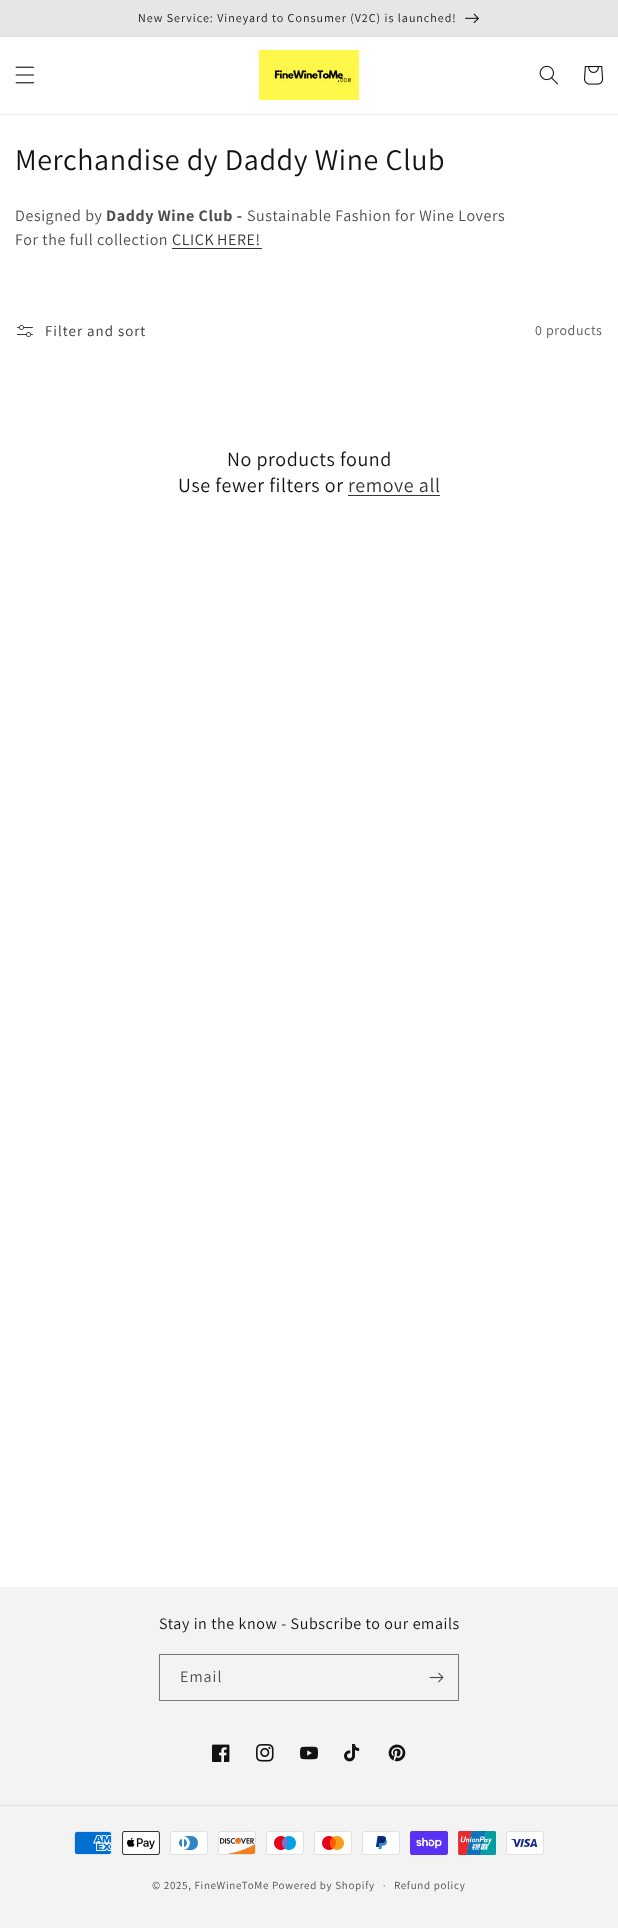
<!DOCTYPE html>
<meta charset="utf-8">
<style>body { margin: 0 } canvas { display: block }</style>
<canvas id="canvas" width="618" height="1928"></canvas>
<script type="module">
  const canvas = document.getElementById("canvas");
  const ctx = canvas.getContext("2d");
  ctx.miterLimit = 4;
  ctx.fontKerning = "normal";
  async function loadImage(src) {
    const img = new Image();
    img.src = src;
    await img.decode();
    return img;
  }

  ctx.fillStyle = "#ffffff";
  ctx.fillRect(0, 0, 618, 1928);
  ctx.fillStyle = "#e1e1e1";
  ctx.fillRect(0, 36, 618, 1);
  ctx.fillStyle = "#e6e6e6";
  ctx.fillRect(0, 0, 618, 36);
  ctx.letterSpacing = "1px";
  ctx.font = "12px Assistant";
  ctx.fillStyle = "#121212";
  ctx.fillText("New Service: Vineyard to Consumer (V2C) is launched!", 138, 22);
  ctx.drawImage(await loadImage("img1.png"), 465, 13, 14, 10);
  ctx.fillStyle = "#ececec";
  ctx.fillRect(0, 114, 618, 1);
  ctx.drawImage(await loadImage("img2.png"), 15, 66, 20, 18);
  ctx.drawImage(await loadImage("img3.png"), 259, 50, 100, 50);
  ctx.drawImage(await loadImage("img4.png"), 539, 65, 19, 20);
  ctx.drawImage(await loadImage("img5.png"), 584, 66, 20, 19);
  ctx.letterSpacing = "0.6px";
  ctx.font = "30px Assistant";
  ctx.fillStyle = "#121212";
  ctx.fillText("Merchandise dy Daddy Wine Club", 15, 170);
  ctx.font = "16px Assistant";
  ctx.fillStyle = "#4d4d4d";
  ctx.fillText("Designed by", 15, 221);
  ctx.font = "bold 16px Assistant";
  ctx.fillText("Daddy Wine Club -", 106, 221);
  ctx.font = "16px Assistant";
  ctx.fillText("Sustainable Fashion for Wine Lovers", 247, 221);
  ctx.fillText("For the full collection", 15, 245);
  ctx.wordSpacing = "-1px";
  ctx.fillStyle = "#363636";
  ctx.fillText("CLICK HERE!", 172, 245);
  ctx.fillRect(172, 248, 90, 1);
  ctx.drawImage(await loadImage("img6.png"), 17, 325, 16, 12);
  ctx.letterSpacing = "1px";
  ctx.wordSpacing = "0px";
  ctx.font = "15px Assistant";
  ctx.fillText("Filter and sort", 45, 336);
  ctx.letterSpacing = "0.6px";
  ctx.font = "14px Assistant";
  ctx.fillStyle = "#595959";
  ctx.fillText("0 products", 535, 335);
  ctx.font = "20px Assistant";
  ctx.fillStyle = "#121212";
  ctx.fillText("No products found", 227, 466);
  ctx.fillText("Use fewer filters or", 178, 492);
  ctx.fillStyle = "#363636";
  ctx.fillText("remove all", 348, 492);
  ctx.fillRect(348, 495, 92, 1);
  ctx.fillStyle = "#f3f3f3";
  ctx.fillRect(0, 1587, 618, 341);
  ctx.font = "16px Assistant";
  ctx.fillStyle = "#121212";
  ctx.fillText("Stay in the know - Subscribe to our emails", 159, 1629);
  ctx.strokeStyle = "#777777";
  ctx.strokeRect(159.5, 1654.5, 299, 46);
  ctx.letterSpacing = "1px";
  ctx.fillStyle = "#4d4d4d";
  ctx.fillText("Email", 180, 1682);
  ctx.drawImage(await loadImage("img7.png"), 429, 1672, 15, 11);
  ctx.drawImage(await loadImage("img8.png"), 212, 1744, 18, 18);
  ctx.drawImage(await loadImage("img9.png"), 256, 1744, 18, 18);
  ctx.drawImage(await loadImage("img10.png"), 300, 1746, 18, 14);
  ctx.drawImage(await loadImage("img11.png"), 344, 1744, 16, 18);
  ctx.drawImage(await loadImage("img12.png"), 388, 1744, 18, 18);
  ctx.fillStyle = "#e1e1e1";
  ctx.fillRect(0, 1805, 618, 1);
  ctx.drawImage(await loadImage("img13.png"), 74, 1831, 38, 24);
  ctx.drawImage(await loadImage("img14.png"), 122, 1831, 38, 24);
  ctx.drawImage(await loadImage("img15.png"), 170, 1831, 38, 24);
  ctx.drawImage(await loadImage("img16.png"), 218, 1831, 38, 24);
  ctx.drawImage(await loadImage("img17.png"), 266, 1831, 38, 24);
  ctx.drawImage(await loadImage("img18.png"), 314, 1831, 38, 24);
  ctx.drawImage(await loadImage("img19.png"), 362, 1831, 38, 24);
  ctx.drawImage(await loadImage("img20.png"), 410, 1831, 38, 24);
  ctx.drawImage(await loadImage("img21.png"), 458, 1831, 38, 24);
  ctx.drawImage(await loadImage("img22.png"), 506, 1831, 38, 24);
  ctx.letterSpacing = "0.7px";
  ctx.font = "11px Assistant";
  ctx.fillStyle = "#4d4d4d";
  ctx.fillText("© 2025, FineWineToMe Powered by Shopify", 152, 1889);
  ctx.font = "10px Assistant";
  ctx.fillText("·", 383, 1889);
  ctx.font = "11px Assistant";
  ctx.fillText("Refund policy", 394, 1889);
</script>
